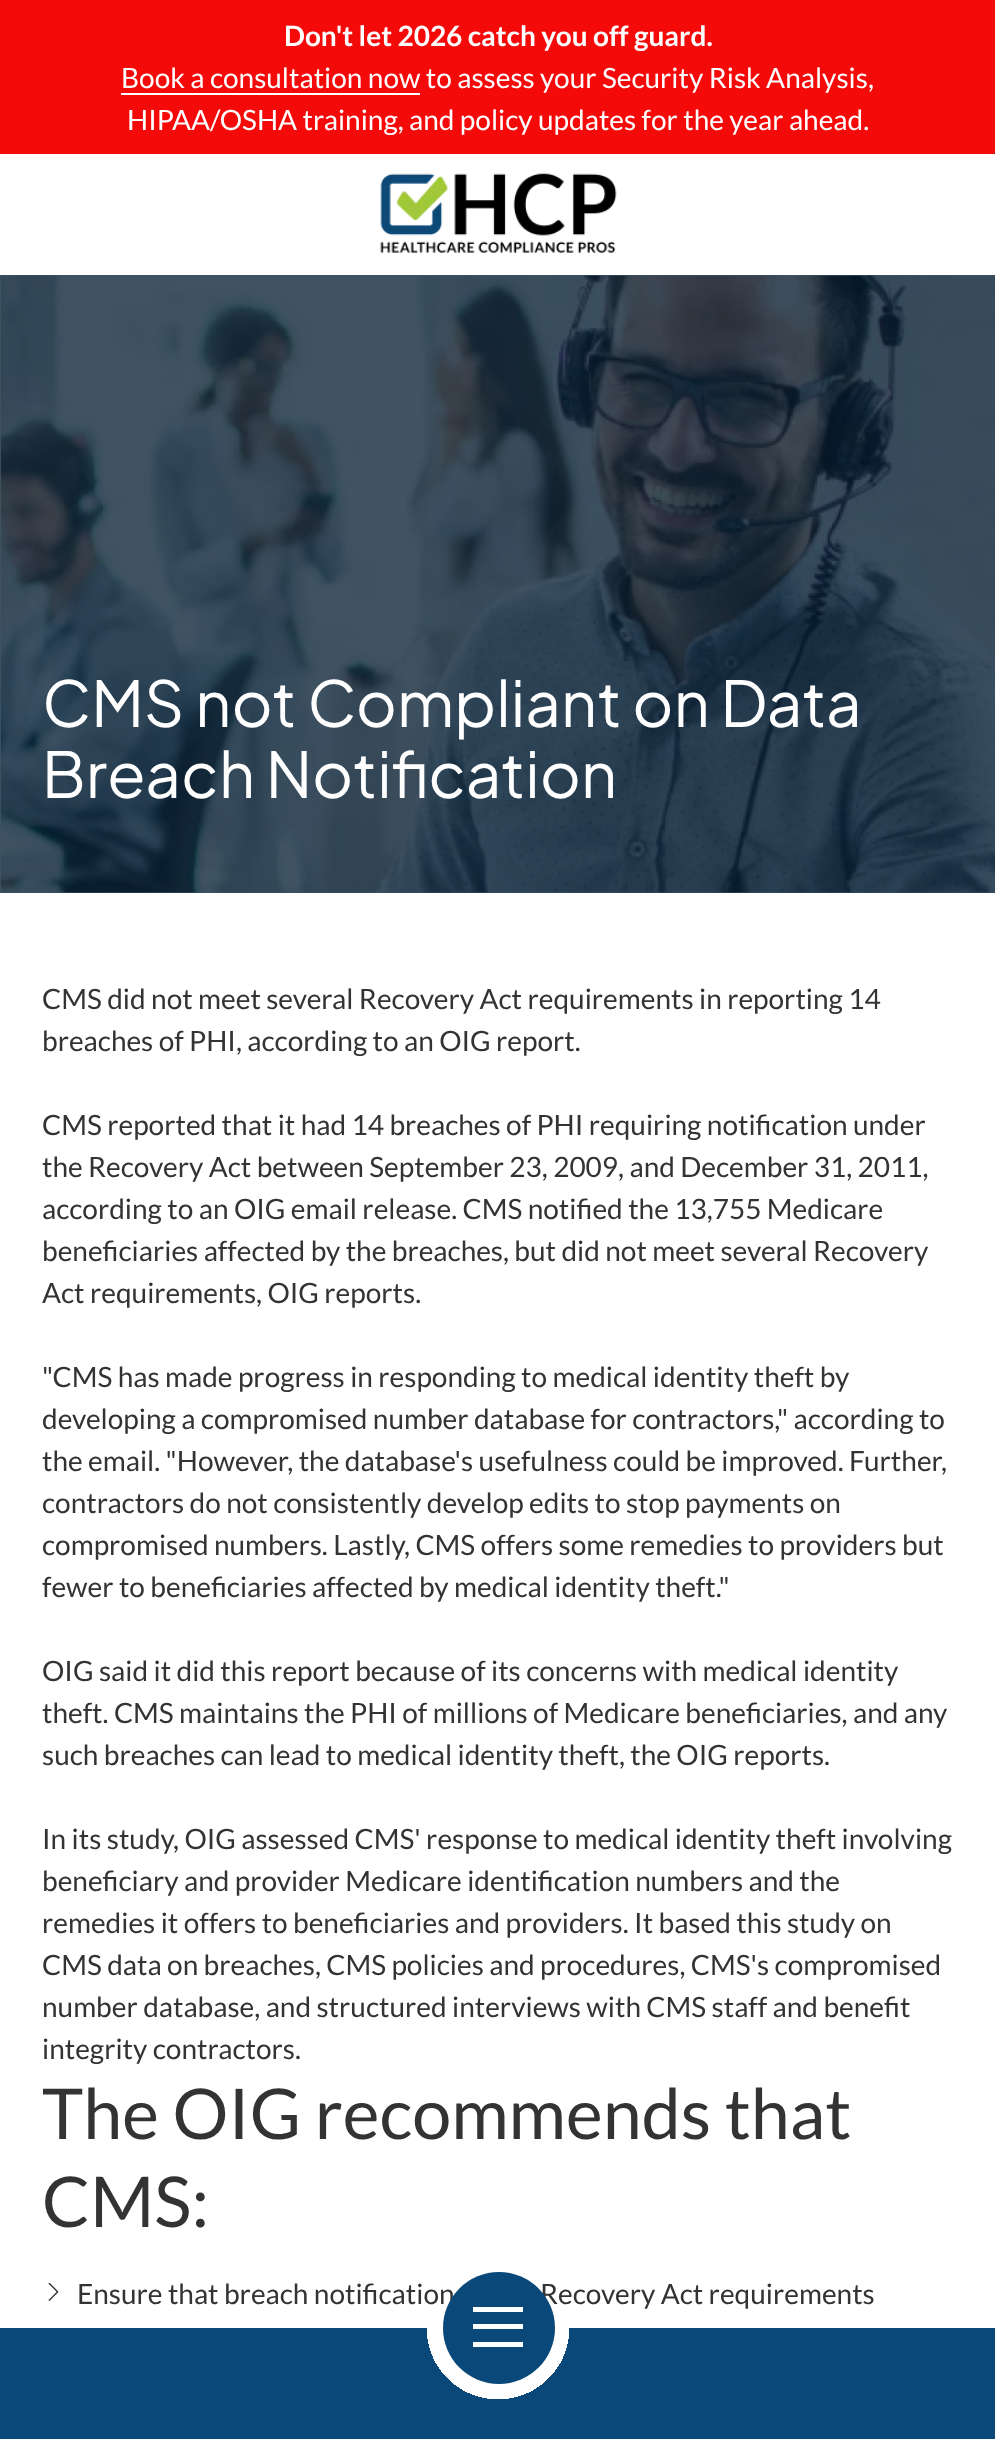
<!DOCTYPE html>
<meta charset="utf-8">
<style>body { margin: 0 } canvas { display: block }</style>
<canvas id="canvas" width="995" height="2439"></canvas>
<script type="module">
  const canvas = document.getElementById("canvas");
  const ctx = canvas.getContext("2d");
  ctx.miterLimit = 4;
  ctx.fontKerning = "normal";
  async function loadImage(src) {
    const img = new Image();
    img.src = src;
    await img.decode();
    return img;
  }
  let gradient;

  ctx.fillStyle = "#ffffff";
  ctx.fillRect(0, 0, 995, 2439);
  ctx.fillStyle = "#415362";
  ctx.fillRect(0, 275, 995, 618);
  ctx.fillStyle = "#f50a0a";
  ctx.fillRect(0, 0, 995, 154);
  ctx.font = "bold 28px Lato";
  ctx.fillStyle = "#ffffff";
  ctx.fillText("Don't let 2026 catch you off guard.", 284, 46);
  ctx.font = "28px Lato";
  ctx.fillText("Book a consultation now to assess your Security Risk Analysis,", 121, 88);
  ctx.fillRect(121, 93, 299, 2);
  ctx.fillText("HIPAA/OSHA training, and policy updates for the year ahead.", 127, 130);
  ctx.drawImage(await loadImage("img1.png"), 380, 173, 237, 80);
  ctx.drawImage(await loadImage("img2.png"), 0, 275, 995, 618);
  ctx.font = "63px Plus Jakarta Sans";
  ctx.fillText("CMS not Compliant on Data", 42, 727);
  ctx.fillText("Breach Notification", 42, 798);
  ctx.font = "28px Lato";
  ctx.fillStyle = "#333333";
  ctx.fillText("CMS did not meet several Recovery Act requirements in reporting 14", 42, 1009);
  ctx.fillText("breaches of PHI, according to an OIG report.", 42, 1051);
  ctx.fillText("CMS reported that it had 14 breaches of PHI requiring notification under", 42, 1135);
  ctx.fillText("the Recovery Act between September 23, 2009, and December 31, 2011,", 42, 1177);
  ctx.fillText("according to an OIG email release. CMS notified the 13,755 Medicare", 42, 1219);
  ctx.fillText("beneficiaries affected by the breaches, but did not meet several Recovery", 42, 1261);
  ctx.fillText("Act requirements, OIG reports.", 42, 1303);
  ctx.fillText("\"CMS has made progress in responding to medical identity theft by", 42, 1387);
  ctx.fillText("developing a compromised number database for contractors,\" according to", 42, 1429);
  ctx.fillText("the email. \"However, the database's usefulness could be improved. Further,", 42, 1471);
  ctx.fillText("contractors do not consistently develop edits to stop payments on", 42, 1513);
  ctx.fillText("compromised numbers. Lastly, CMS offers some remedies to providers but", 42, 1555);
  ctx.fillText("fewer to beneficiaries affected by medical identity theft.\"", 42, 1597);
  ctx.fillText("OIG said it did this report because of its concerns with medical identity", 42, 1681);
  ctx.fillText("theft. CMS maintains the PHI of millions of Medicare beneficiaries, and any", 42, 1723);
  ctx.fillText("such breaches can lead to medical identity theft, the OIG reports.", 42, 1765);
  ctx.fillText("In its study, OIG assessed CMS' response to medical identity theft involving", 42, 1849);
  ctx.fillText("beneficiary and provider Medicare identification numbers and the", 42, 1891);
  ctx.fillText("remedies it offers to beneficiaries and providers. It based this study on", 42, 1933);
  ctx.fillText("CMS data on breaches, CMS policies and procedures, CMS's compromised", 42, 1975);
  ctx.fillText("number database, and structured interviews with CMS staff and benefit", 42, 2017);
  ctx.fillText("integrity contractors.", 42, 2059);
  ctx.font = "70px Lato";
  ctx.fillText("The OIG recommends that", 42, 2139);
  ctx.fillText("CMS:", 42, 2227);
  ctx.drawImage(await loadImage("img3.png"), 48, 2283, 11, 18);
  ctx.font = "28px Lato";
  ctx.fillText("Ensure that breach notification", 77, 2304);
  ctx.fillText("Recovery Act requirements", 540, 2304);
  gradient = ctx.createRadialGradient(498, 2328, 0, 498, 2328, 510);
  gradient.addColorStop(0.14, "rgba(9, 72, 121, 0)");
  gradient.addColorStop(0.14, "#094879");
  ctx.fillStyle = gradient;
  ctx.fillRect(0, 2328, 995, 111);
  ctx.fillStyle = "#094879";
  ctx.beginPath();
  ctx.arc(499, 2328, 56, 0, Math.PI * 2);
  ctx.fill();
  ctx.fillStyle = "#ffffff";
  ctx.fillRect(473, 2324, 50, 5);
  ctx.fillRect(473, 2307, 50, 5);
  ctx.fillRect(473, 2342, 50, 5);
</script>
